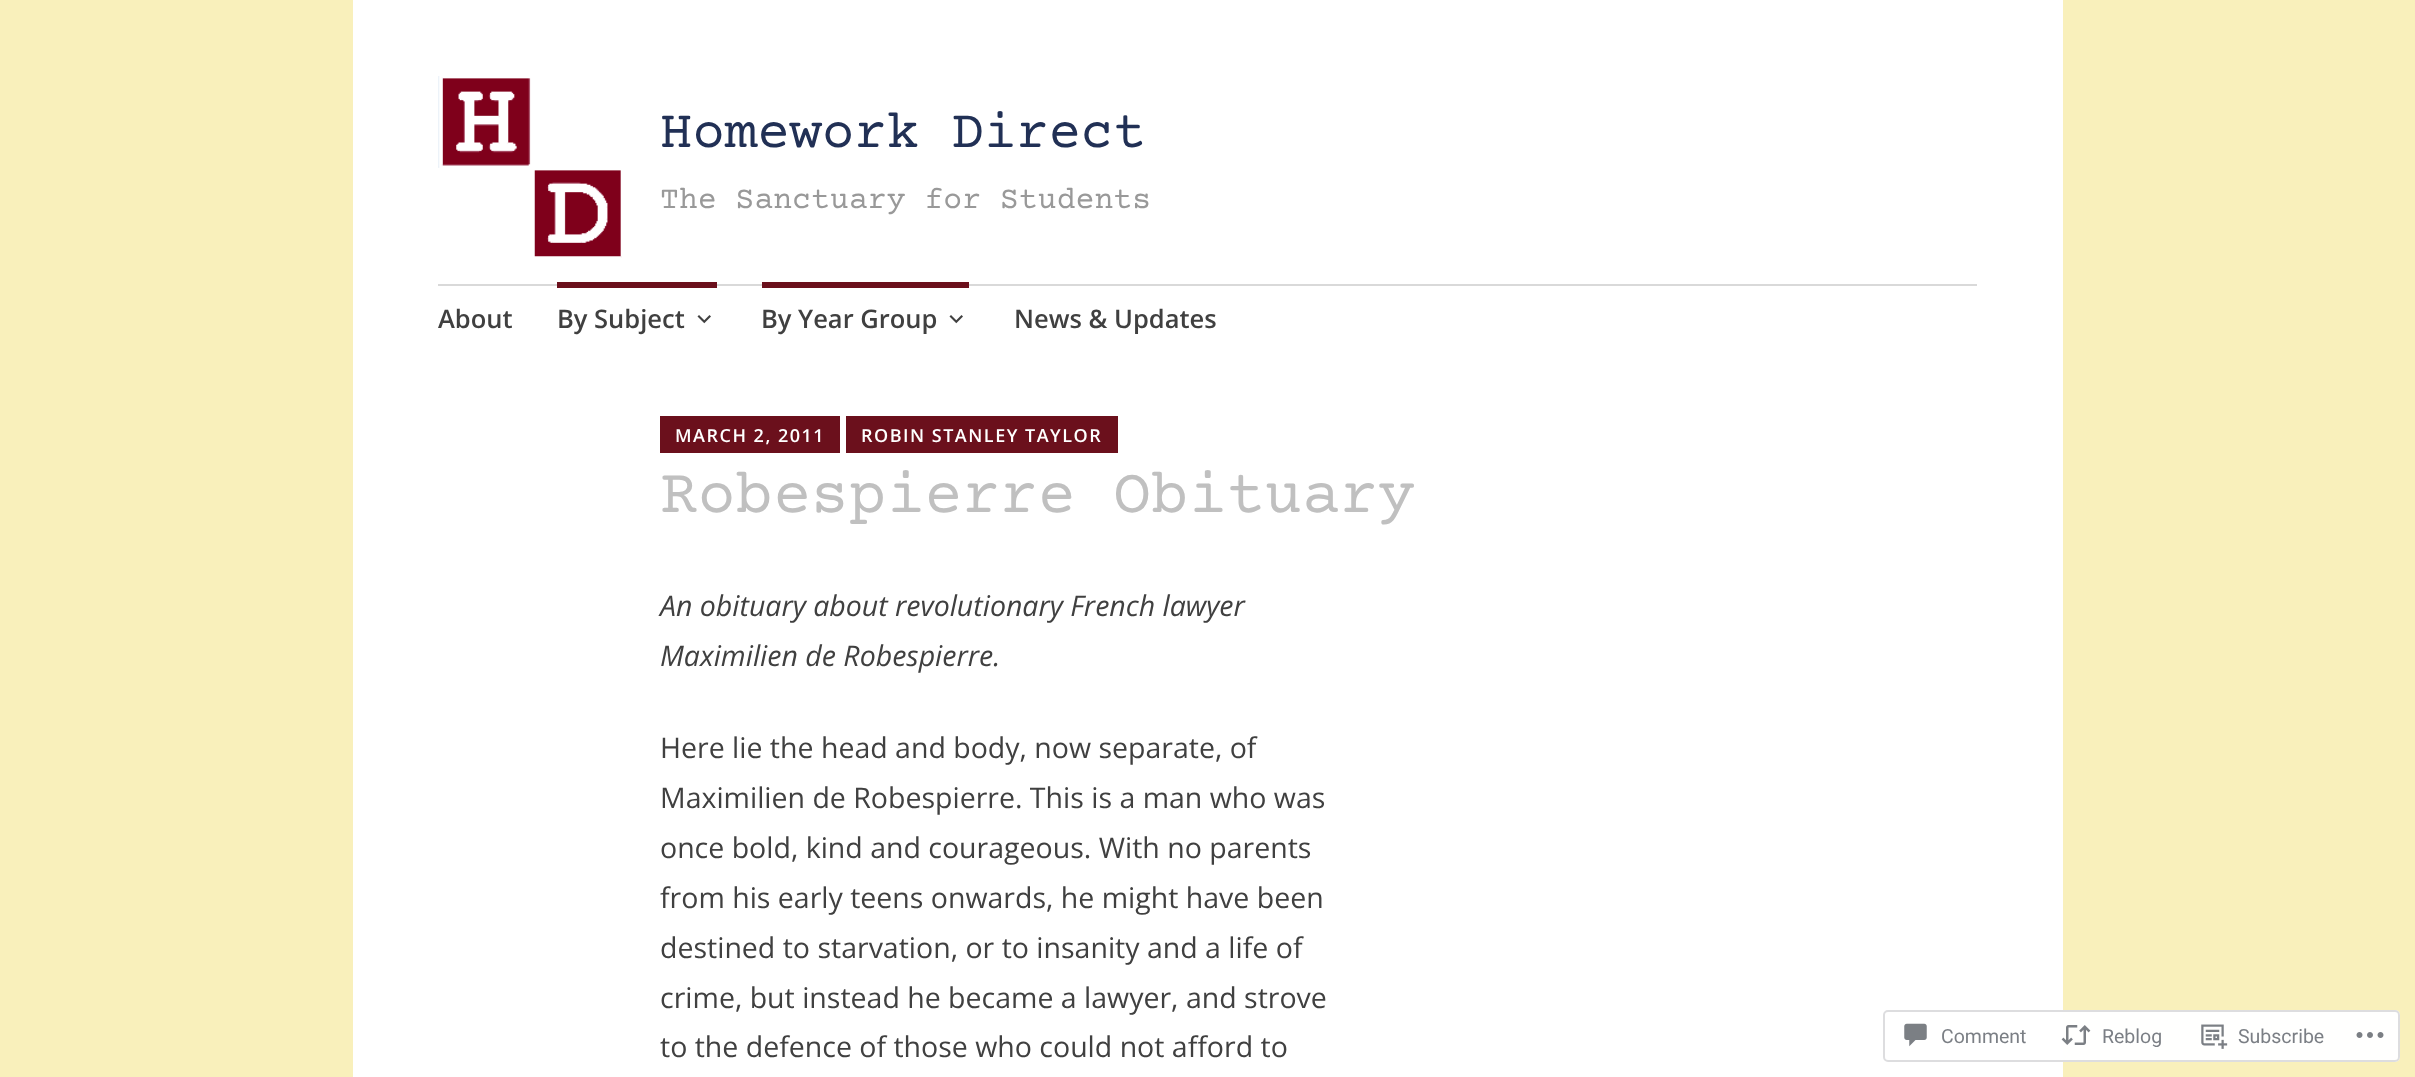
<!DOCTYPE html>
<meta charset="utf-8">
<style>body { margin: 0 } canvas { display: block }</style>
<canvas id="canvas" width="2415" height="1077"></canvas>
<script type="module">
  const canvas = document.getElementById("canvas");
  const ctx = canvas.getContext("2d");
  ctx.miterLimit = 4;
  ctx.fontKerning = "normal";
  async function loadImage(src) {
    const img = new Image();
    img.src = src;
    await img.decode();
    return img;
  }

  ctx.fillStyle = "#f9f0bb";
  ctx.fillRect(0, 0, 2415, 1077);
  ctx.fillStyle = "#ffffff";
  ctx.fillRect(353, 0, 1710, 1077);
  ctx.drawImage(await loadImage("img1.png"), 438, 76, 184, 182);
  ctx.font = "54px Courier Prime";
  ctx.fillStyle = "#213055";
  ctx.fillText("Homework Direct", 660, 147);
  ctx.font = "31.5px Courier Prime";
  ctx.fillStyle = "#999999";
  ctx.fillText("The Sanctuary for Students", 660, 208);
  ctx.fillStyle = "#d9d9d9";
  ctx.fillRect(438, 284, 1539, 2);
  ctx.font = "600 25.5px Open Sans";
  ctx.fillStyle = "#404040";
  ctx.fillText("About", 438, 328);
  ctx.fillStyle = "#6b101c";
  ctx.fillRect(557, 282, 160, 6);
  ctx.fillStyle = "#404040";
  ctx.fillText("By Subject", 557, 328);
  ctx.drawImage(await loadImage("img2.png"), 697, 315, 14, 9);
  ctx.fillStyle = "#6b101c";
  ctx.fillRect(762, 282, 207, 6);
  ctx.fillStyle = "#404040";
  ctx.fillText("By Year Group", 761, 328);
  ctx.drawImage(await loadImage("img2.png"), 949, 315, 14, 9);
  ctx.fillText("News & Updates", 1014, 328);
  ctx.fillStyle = "#6b101c";
  ctx.fillRect(660, 416, 180, 37);
  ctx.letterSpacing = "1.5px";
  ctx.font = "600 18px Open Sans";
  ctx.fillStyle = "#ffffff";
  ctx.fillText("MARCH 2, 2011", 675, 442);
  ctx.fillStyle = "#6b101c";
  ctx.fillRect(846, 416, 272, 37);
  ctx.fillStyle = "#ffffff";
  ctx.fillText("ROBIN STANLEY TAYLOR", 861, 442);
  ctx.letterSpacing = "0px";
  ctx.font = "63px Courier Prime";
  ctx.fillStyle = "#c0c0c0";
  ctx.fillText("Robespierre Obituary", 660, 512);
  ctx.font = "italic 28.5px Open Sans";
  ctx.fillStyle = "#404040";
  ctx.fillText("An obituary about revolutionary French lawyer", 660, 616);
  ctx.fillText("Maximilien de Robespierre.", 660, 666);
  ctx.font = "28.5px Open Sans";
  ctx.fillText("Here lie the head and body, now separate, of", 660, 758);
  ctx.fillText("Maximilien de Robespierre. This is a man who was", 660, 808);
  ctx.fillText("once bold, kind and courageous. With no parents", 660, 858);
  ctx.fillText("from his early teens onwards, he might have been", 660, 908);
  ctx.fillText("destined to starvation, or to insanity and a life of", 660, 958);
  ctx.fillText("crime, but instead he became a lawyer, and strove", 660, 1008);
  ctx.fillText("to the defence of those who could not afford to", 660, 1057);
  ctx.fillStyle = "rgba(255, 255, 255, 0.98)";
  ctx.beginPath();
  ctx.roundRect(1883, 1010, 517, 52, 5);
  ctx.fill();
  ctx.beginPath();
  ctx.roundRect(1884, 1011, 515, 50, 4);
  ctx.strokeStyle = "rgba(220, 220, 222, 0.98)";
  ctx.lineWidth = 2;
  ctx.stroke();
  ctx.drawImage(await loadImage("img3.png"), 1904, 1023, 23, 24);
  ctx.font = "19.5px Roboto";
  ctx.fillStyle = "#7b7f85";
  ctx.fillText("Comment", 1941, 1043);
  ctx.drawImage(await loadImage("img4.png"), 2061, 1025, 30, 20);
  ctx.fillText("Reblog", 2102, 1043);
  ctx.drawImage(await loadImage("img5.png"), 2201, 1024, 27, 25);
  ctx.fillText("Subscribe", 2238, 1043);
  ctx.drawImage(await loadImage("img6.png"), 2356, 1032, 28, 6);
</script>
